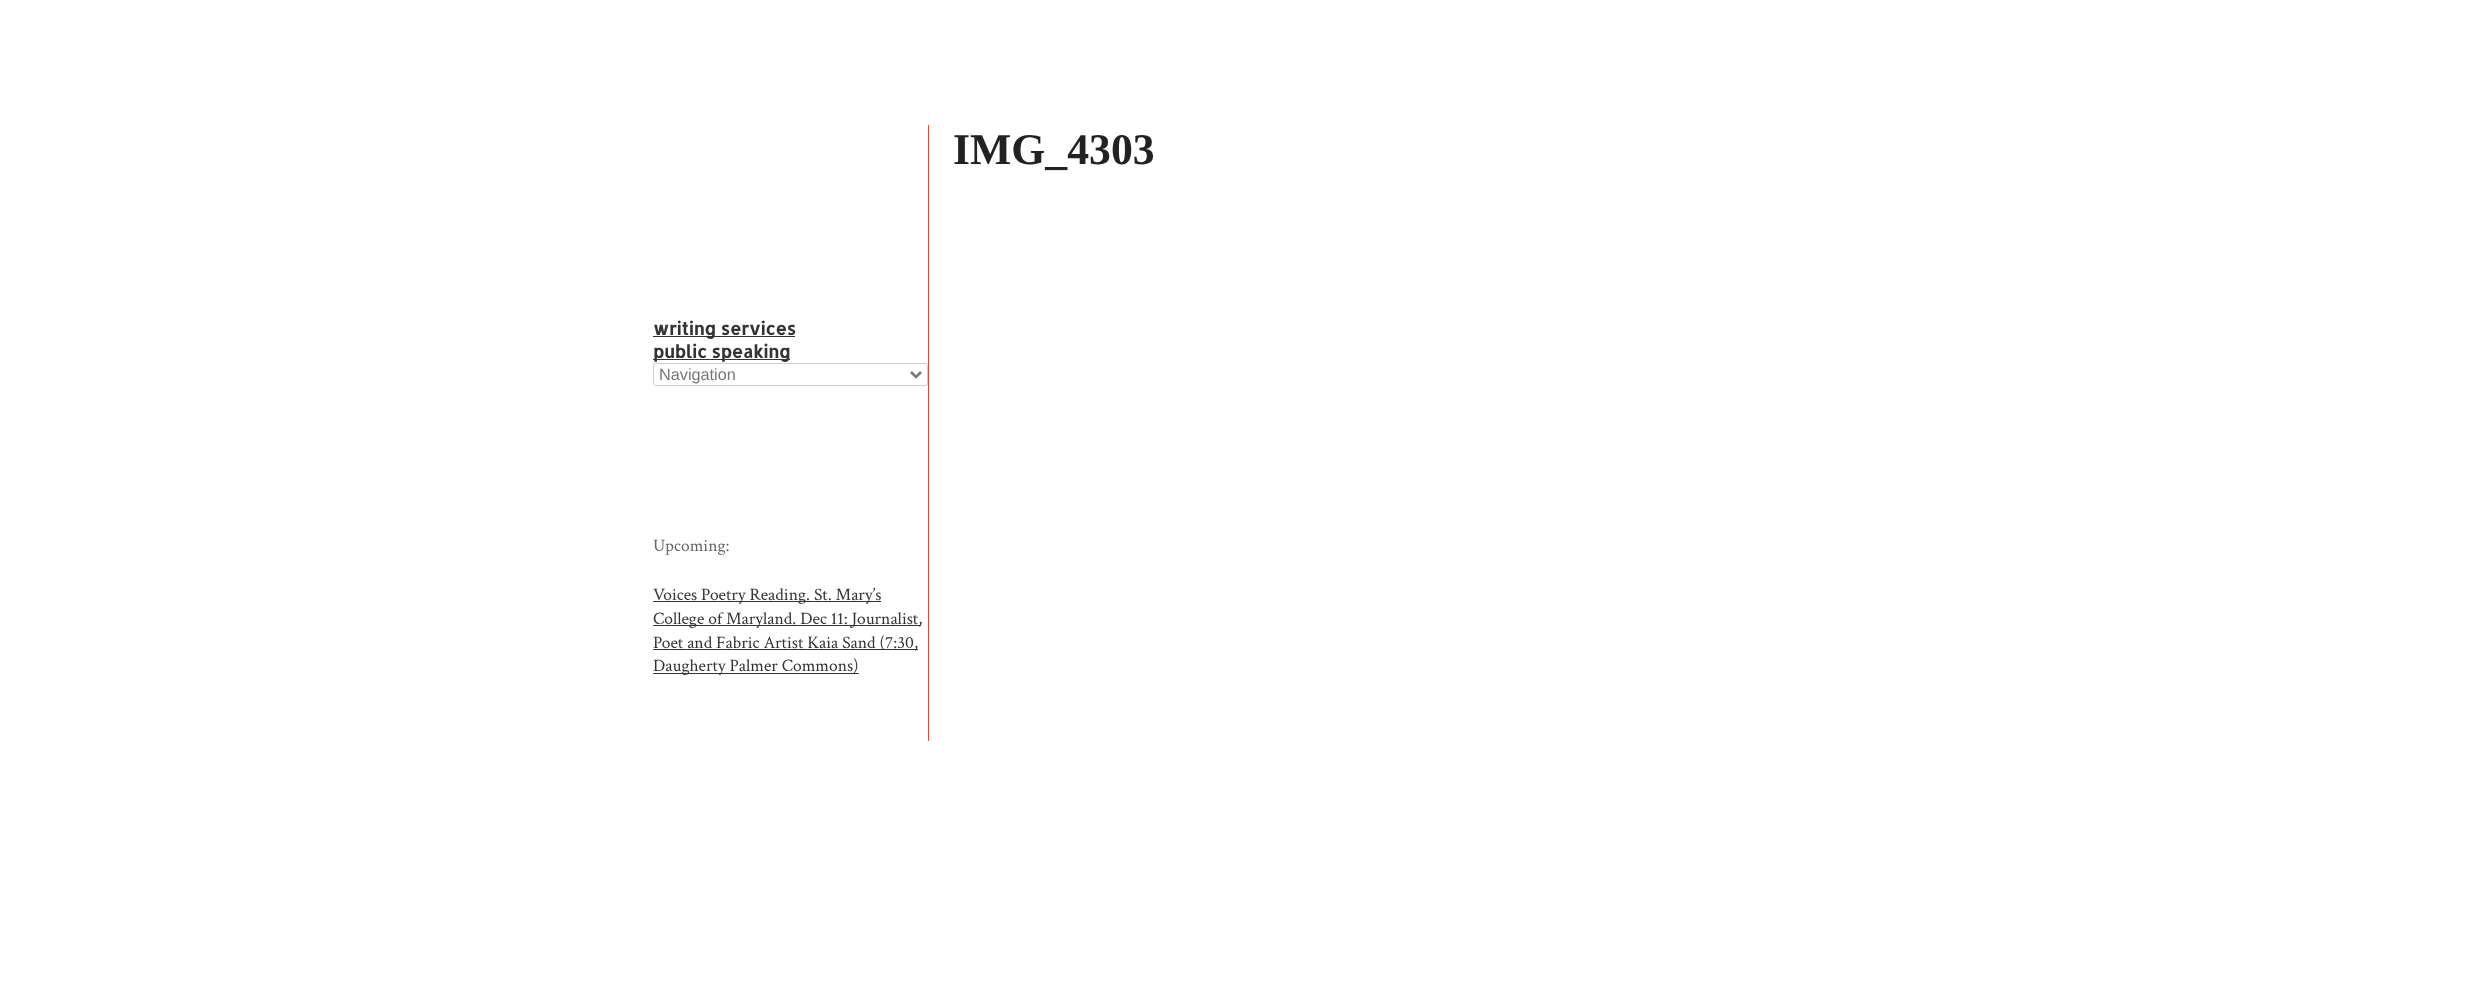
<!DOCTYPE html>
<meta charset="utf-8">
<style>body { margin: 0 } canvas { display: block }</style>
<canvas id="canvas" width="2479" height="989"></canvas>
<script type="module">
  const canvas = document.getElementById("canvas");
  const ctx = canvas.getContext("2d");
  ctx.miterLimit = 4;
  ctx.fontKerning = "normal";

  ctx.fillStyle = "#ffffff";
  ctx.fillRect(0, 0, 2479, 989);
  ctx.font = "bold 43.75px Liberation Serif";
  ctx.fillStyle = "#222222";
  ctx.fillText("IMG_4303", 953, 164);
  ctx.fillStyle = "#cc563c";
  ctx.fillRect(928, 125, 1, 616);
  ctx.fillStyle = "#333333";
  ctx.fillRect(653, 336, 142, 1);
  ctx.font = "bold 17.5px Allerta";
  ctx.fillText("writing services", 653, 335);
  ctx.fillRect(653, 359, 137, 1);
  ctx.fillText("public speaking", 653, 358);
  ctx.beginPath();
  ctx.roundRect(653.5, 363.5, 274, 22, 2);
  ctx.strokeStyle = "#cccccc";
  ctx.stroke();
  ctx.beginPath();
  ctx.moveTo(911, 372);
  ctx.lineTo(916, 377);
  ctx.lineTo(921, 372);
  ctx.strokeStyle = "#777777";
  ctx.lineWidth = 2.5;
  ctx.stroke();
  ctx.font = "16.25px Liberation Sans";
  ctx.fillStyle = "#777777";
  ctx.fillText("Navigation", 659, 380);
  ctx.font = "17.5px Crimson Text";
  ctx.fillStyle = "#666666";
  ctx.fillText("Upcoming:", 653, 551);
  ctx.fillStyle = "#333333";
  ctx.fillRect(653, 601, 228, 1);
  ctx.fillText("Voices Poetry Reading. St. Mary’s", 653, 600);
  ctx.fillRect(653, 625, 268, 1);
  ctx.fillText("College of Maryland. Dec 11: Journalist,", 653, 624);
  ctx.fillRect(653, 649, 265, 1);
  ctx.fillText("Poet and Fabric Artist Kaia Sand (7:30,", 653, 648);
  ctx.fillRect(653, 673, 206, 1);
  ctx.fillText("Daugherty Palmer Commons)", 653, 671);
</script>
